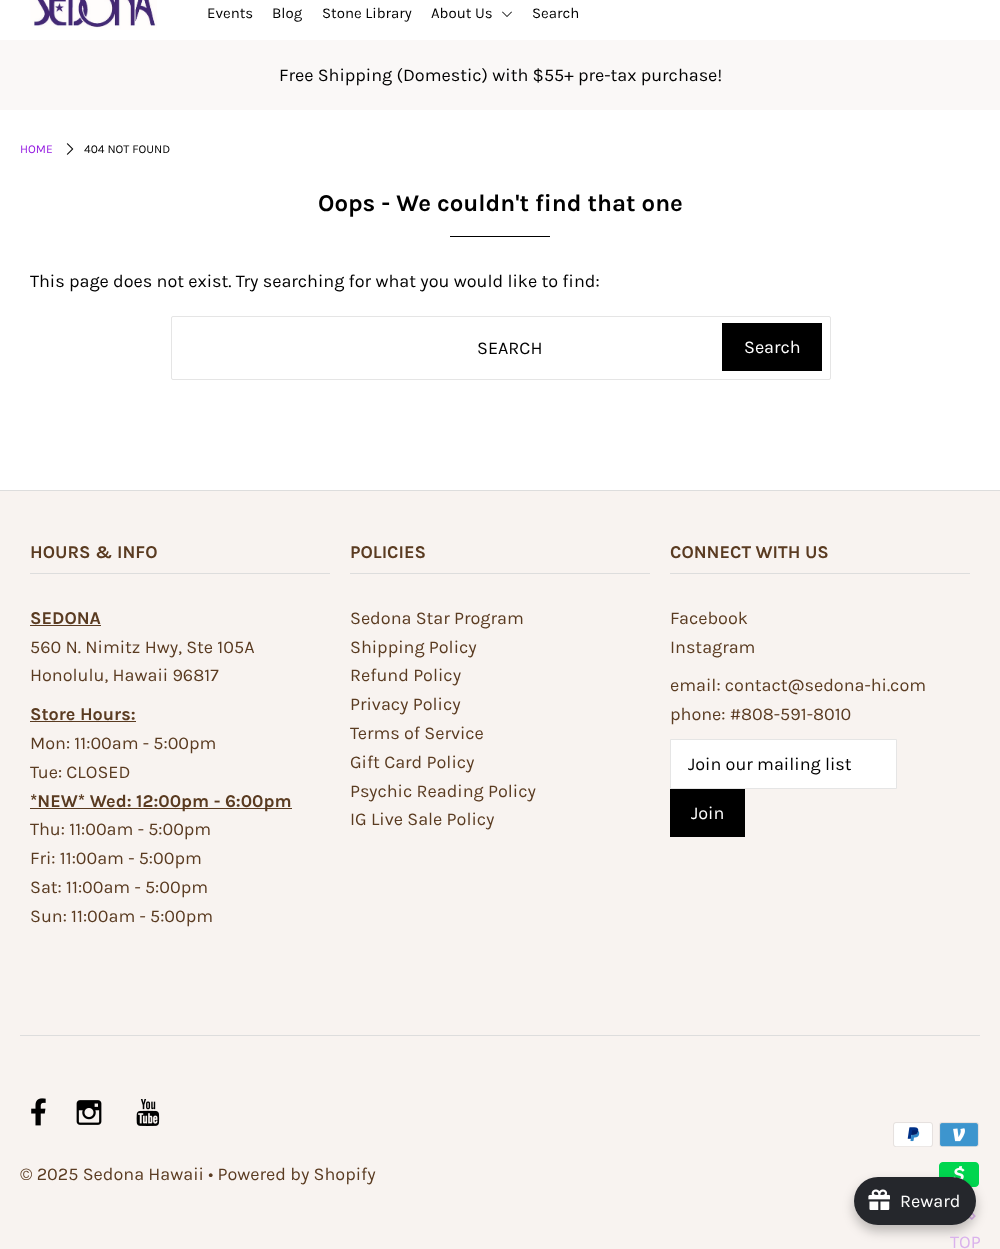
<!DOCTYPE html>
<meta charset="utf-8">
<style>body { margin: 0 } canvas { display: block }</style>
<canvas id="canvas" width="1000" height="1249"></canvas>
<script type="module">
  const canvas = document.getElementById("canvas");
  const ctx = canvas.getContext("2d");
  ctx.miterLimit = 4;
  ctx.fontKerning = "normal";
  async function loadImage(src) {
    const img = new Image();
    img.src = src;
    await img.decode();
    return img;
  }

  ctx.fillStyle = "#ffffff";
  ctx.fillRect(0, 0, 1000, 1249);
  ctx.drawImage(await loadImage("img1.png"), 30, 0, 127, 30);
  ctx.font = "15px Karla";
  ctx.fillStyle = "#000000";
  ctx.fillText("Events", 207, 18);
  ctx.fillText("Blog", 272, 18);
  ctx.fillText("Stone Library", 322, 18);
  ctx.fillText("About Us", 431, 18);
  ctx.drawImage(await loadImage("img2.png"), 502, 11, 10, 6);
  ctx.fillText("Search", 532, 18);
  ctx.fillStyle = "#faf8f7";
  ctx.fillRect(0, 40, 1000, 70);
  ctx.font = "18px Karla";
  ctx.fillStyle = "#000000";
  ctx.fillText("Free Shipping (Domestic) with $55+ pre-tax purchase!", 279, 81);
  ctx.font = "12px Karla";
  ctx.fillStyle = "#9419e2";
  ctx.fillText("HOME", 20, 153);
  ctx.drawImage(await loadImage("img3.png"), 66, 143, 8, 12);
  ctx.fillStyle = "#000000";
  ctx.fillText("404 NOT FOUND", 84, 153);
  ctx.font = "bold 24px Karla";
  ctx.fillText("Oops - We couldn't find that one", 318, 211);
  ctx.fillRect(450, 236, 100, 1);
  ctx.font = "18px Karla";
  ctx.fillText("This page does not exist. Try searching for what you would like to find:", 30, 287);
  ctx.beginPath();
  ctx.roundRect(171.5, 316.5, 659, 63, 1.5);
  ctx.strokeStyle = "#e5e5e5";
  ctx.stroke();
  ctx.fillText("SEARCH", 477, 354);
  ctx.fillRect(722, 323, 100, 48);
  ctx.fillStyle = "#ffffff";
  ctx.fillText("Search", 744, 353);
  ctx.fillStyle = "#f8f3f0";
  ctx.fillRect(0, 491, 1000, 758);
  ctx.fillStyle = "#dddddd";
  ctx.fillRect(0, 490, 1000, 1);
  ctx.fillRect(30, 573, 300, 1);
  ctx.font = "bold 18px Karla";
  ctx.fillStyle = "#5a3b21";
  ctx.fillText("HOURS & INFO", 30, 558);
  ctx.fillText("SEDONA", 30, 624);
  ctx.fillRect(30, 625, 71, 1);
  ctx.font = "18px Karla";
  ctx.fillText("560 N. Nimitz Hwy, Ste 105A", 30, 653);
  ctx.fillText("Honolulu, Hawaii 96817", 30, 681);
  ctx.font = "bold 18px Karla";
  ctx.fillText("Store Hours:", 30, 720);
  ctx.fillRect(30, 721, 106, 1);
  ctx.font = "18px Karla";
  ctx.fillText("Mon: 11:00am - 5:00pm", 30, 749);
  ctx.fillText("Tue: CLOSED", 30, 778);
  ctx.fillRect(30, 808, 262, 1);
  ctx.font = "bold 18px Karla";
  ctx.fillText("*NEW* Wed: 12:00pm - 6:00pm", 30, 807);
  ctx.font = "18px Karla";
  ctx.fillText("Thu: 11:00am - 5:00pm", 30, 835);
  ctx.fillText("Fri: 11:00am - 5:00pm", 30, 864);
  ctx.fillText("Sat: 11:00am - 5:00pm", 30, 893);
  ctx.fillText("Sun: 11:00am - 5:00pm", 30, 922);
  ctx.fillStyle = "#dddddd";
  ctx.fillRect(350, 573, 300, 1);
  ctx.font = "bold 18px Karla";
  ctx.fillStyle = "#5a3b21";
  ctx.fillText("POLICIES", 350, 558);
  ctx.font = "18px Karla";
  ctx.fillText("Sedona Star Program", 350, 624);
  ctx.fillText("Shipping Policy", 350, 653);
  ctx.fillText("Refund Policy", 350, 681);
  ctx.fillText("Privacy Policy", 350, 710);
  ctx.fillText("Terms of Service", 350, 739);
  ctx.fillText("Gift Card Policy", 350, 768);
  ctx.fillText("Psychic Reading Policy", 350, 797);
  ctx.fillText("IG Live Sale Policy", 350, 825);
  ctx.fillStyle = "#dddddd";
  ctx.fillRect(670, 573, 300, 1);
  ctx.font = "bold 18px Karla";
  ctx.fillStyle = "#5a3b21";
  ctx.fillText("CONNECT WITH US", 670, 558);
  ctx.font = "18px Karla";
  ctx.fillText("Facebook", 670, 624);
  ctx.fillText("Instagram", 670, 653);
  ctx.fillText("email: contact@sedona-hi.com", 670, 691);
  ctx.fillText("phone: #808-591-8010", 670, 720);
  ctx.fillStyle = "#ffffff";
  ctx.beginPath();
  ctx.rect(670.5, 739.5, 226, 49);
  ctx.fill();
  ctx.stroke();
  ctx.fillStyle = "#000000";
  ctx.fillText("Join our mailing list", 688, 770);
  ctx.fillRect(670, 789, 75, 48);
  ctx.fillStyle = "#ffffff";
  ctx.fillText("Join", 691, 819);
  ctx.fillStyle = "#dddddd";
  ctx.fillRect(20, 1035, 960, 1);
  ctx.drawImage(await loadImage("img4.png"), 31, 1098, 15, 28);
  ctx.drawImage(await loadImage("img5.png"), 76, 1100, 26, 25);
  ctx.drawImage(await loadImage("img6.png"), 136, 1099, 24, 27);
  ctx.fillStyle = "#5a3b21";
  ctx.fillText("© 2025 Sedona Hawaii • Powered by Shopify", 20, 1180);
  ctx.drawImage(await loadImage("img7.png"), 893, 1122, 40, 25);
  ctx.drawImage(await loadImage("img8.png"), 939, 1122, 40, 25);
  ctx.drawImage(await loadImage("img9.png"), 939, 1162, 40, 25);
  ctx.drawImage(await loadImage("img11.png"), 969, 1212, 7, 8);
  ctx.fillStyle = "rgba(0, 0, 0, 0.25)";
  ctx.filter = "blur(6px)";
  ctx.beginPath();
  ctx.roundRect(854, 1183, 122, 48, 24);
  ctx.fill();
  ctx.filter = "none";
  ctx.fillStyle = "#25272c";
  ctx.beginPath();
  ctx.roundRect(854, 1177, 122, 48, 24);
  ctx.fill();
  ctx.drawImage(await loadImage("img10.png"), 868, 1189, 22, 21);
  ctx.fillStyle = "#ffffff";
  ctx.fillText("Reward", 900, 1207);
  ctx.fillStyle = "#dab2ec";
  ctx.fillText("TOP", 950, 1248);
</script>
